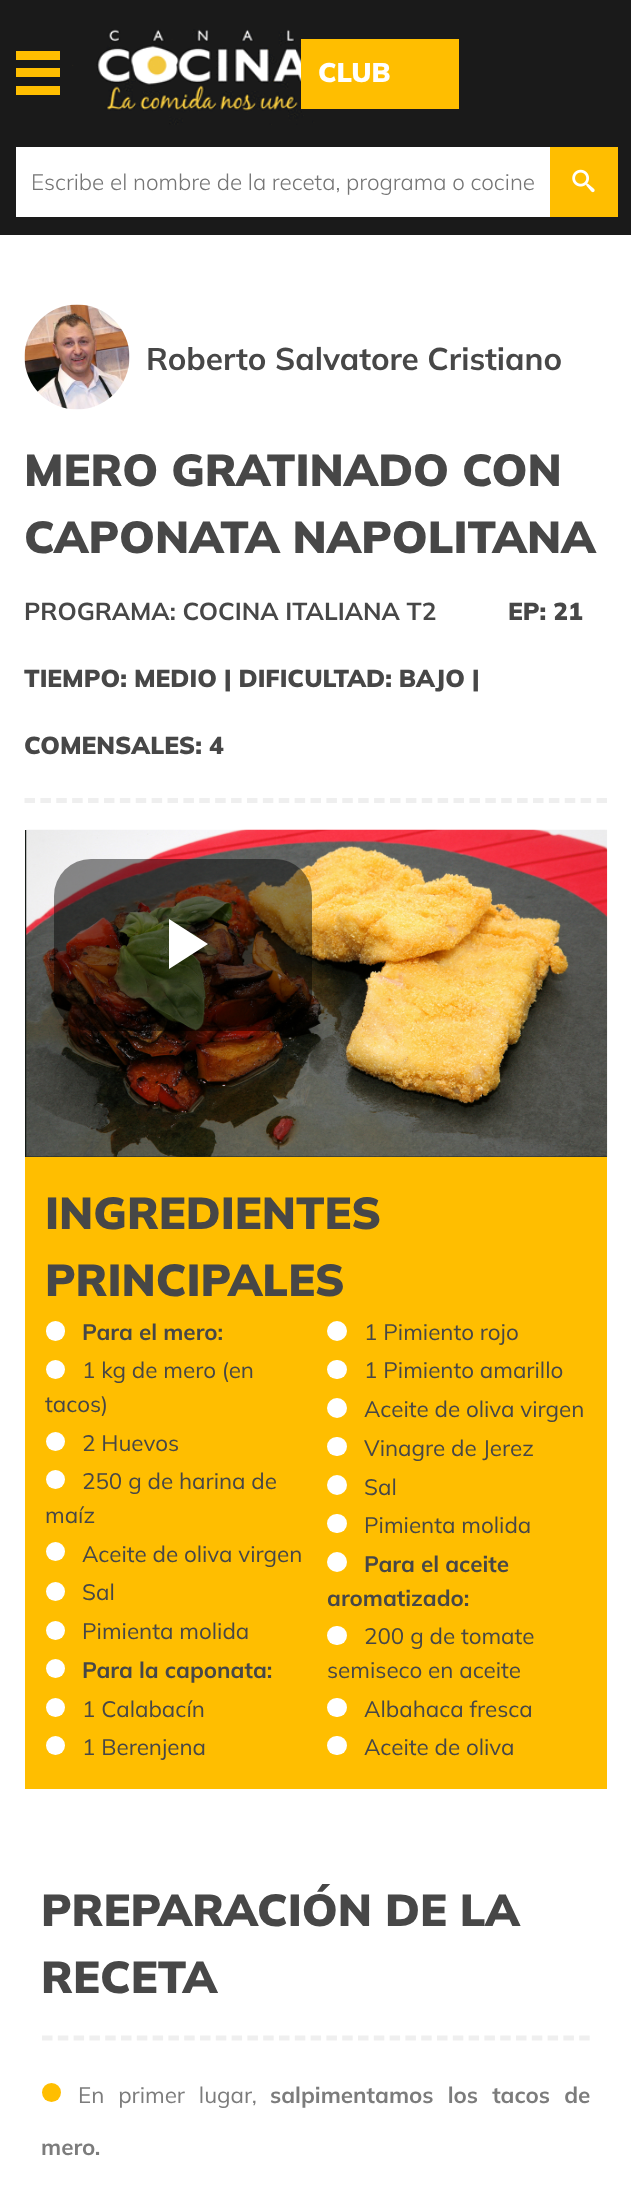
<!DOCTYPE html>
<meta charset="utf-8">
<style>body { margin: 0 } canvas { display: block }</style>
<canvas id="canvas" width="631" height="2186"></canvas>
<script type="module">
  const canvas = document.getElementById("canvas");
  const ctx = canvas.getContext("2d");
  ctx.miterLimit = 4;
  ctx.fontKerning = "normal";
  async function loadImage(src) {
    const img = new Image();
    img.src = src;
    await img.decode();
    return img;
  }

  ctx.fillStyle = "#1a1a1a";
  ctx.fillRect(0, 0, 631, 2186);
  ctx.fillStyle = "#ffbe00";
  ctx.fillRect(16, 51, 44, 9);
  ctx.fillRect(16, 68, 44, 9);
  ctx.fillRect(16, 86, 44, 9);
  ctx.drawImage(await loadImage("img1.png"), 72, 29, 246, 96);
  ctx.fillRect(301, 39, 158, 70);
  ctx.font = "900 27px Mulish";
  ctx.fillStyle = "#ffffff";
  ctx.fillText("CLUB", 318, 82);
  ctx.fillRect(16, 147, 534, 70);
  ctx.font = "300 22.4px Mulish";
  ctx.fillStyle = "#757575";
  ctx.fillText("Escribe el nombre de la receta, programa o cocine", 31, 190);
  ctx.fillStyle = "#ffbe00";
  ctx.fillRect(550, 147, 68, 70);
  ctx.drawImage(await loadImage("img2.png"), 572, 169, 23, 24);
  ctx.fillStyle = "#ffffff";
  ctx.fillRect(0, 235, 631, 1951);
  ctx.drawImage(await loadImage("img3.png"), 24, 304, 106, 106);
  ctx.font = "bold 31.4px Mulish";
  ctx.fillStyle = "#474747";
  ctx.fillText("Roberto Salvatore Cristiano", 146, 370);
  ctx.beginPath();
  ctx.moveTo(24.5, 800.5);
  ctx.lineTo(607, 800.5);
  ctx.strokeStyle = "#efefef";
  ctx.lineWidth = 5.2;
  ctx.setLineDash([10.5, 5.39]);
  ctx.stroke();
  ctx.font = "900 44.75px Mulish";
  ctx.fillText("MERO GRATINADO CON", 24, 486);
  ctx.fillText("CAPONATA NAPOLITANA", 24, 553);
  ctx.font = "bold 24.5px Mulish";
  ctx.fillText("PROGRAMA: COCINA ITALIANA T2", 24, 620);
  ctx.font = "900 24.5px Mulish";
  ctx.fillText("EP: 21", 508, 620);
  ctx.fillText("TIEMPO: MEDIO | DIFICULTAD: BAJO |", 24, 687);
  ctx.fillText("COMENSALES: 4", 24, 754);
  ctx.fillStyle = "#151b17";
  ctx.fillRect(25, 830, 582, 327);
  ctx.drawImage(await loadImage("img4.png"), 26, 829, 582, 328);
  ctx.fillStyle = "rgba(0, 0, 0, 0.45)";
  ctx.beginPath();
  ctx.roundRect(54, 859, 258, 172, 37);
  ctx.fill();
  ctx.fillStyle = "#ffffff";
  ctx.beginPath();
  ctx.moveTo(169, 919);
  ctx.lineTo(169, 969);
  ctx.lineTo(208, 944);
  ctx.closePath();
  ctx.fill();
  ctx.fillStyle = "#ffbe00";
  ctx.fillRect(25, 1157, 582, 632);
  ctx.font = "900 44.75px Mulish";
  ctx.fillStyle = "#474747";
  ctx.fillText("INGREDIENTES", 45, 1229);
  ctx.fillText("PRINCIPALES", 45, 1296);
  ctx.fillStyle = "#ffffff";
  ctx.beginPath();
  ctx.roundRect(46, 1321, 19, 20, 9.5);
  ctx.fill();
  ctx.font = "bold 22.4px Mulish";
  ctx.fillStyle = "#474747";
  ctx.fillText("Para el mero:", 82, 1340);
  ctx.fillStyle = "#ffffff";
  ctx.beginPath();
  ctx.arc(337, 1331, 10, 0, Math.PI * 2);
  ctx.fill();
  ctx.font = "22.4px Mulish";
  ctx.fillStyle = "#474747";
  ctx.fillText("1 Pimiento rojo", 364, 1340);
  ctx.fillStyle = "#ffffff";
  ctx.beginPath();
  ctx.arc(55.5, 1369.5, 9.5, 0, Math.PI * 2);
  ctx.fill();
  ctx.fillStyle = "#474747";
  ctx.fillText("1 kg de mero (en", 82, 1378);
  ctx.fillText("tacos)", 45, 1412);
  ctx.fillStyle = "#ffffff";
  ctx.beginPath();
  ctx.roundRect(327, 1360, 20, 19, 9.5);
  ctx.fill();
  ctx.fillStyle = "#474747";
  ctx.fillText("1 Pimiento amarillo", 364, 1378);
  ctx.fillStyle = "#ffffff";
  ctx.beginPath();
  ctx.arc(337, 1408, 10, 0, Math.PI * 2);
  ctx.fill();
  ctx.fillStyle = "#474747";
  ctx.fillText("Aceite de oliva virgen", 364, 1417);
  ctx.fillStyle = "#ffffff";
  ctx.beginPath();
  ctx.arc(55.5, 1441.5, 9.5, 0, Math.PI * 2);
  ctx.fill();
  ctx.fillStyle = "#474747";
  ctx.fillText("2 Huevos", 82, 1451);
  ctx.fillStyle = "#ffffff";
  ctx.beginPath();
  ctx.roundRect(327, 1437, 20, 19, 9.5);
  ctx.fill();
  ctx.fillStyle = "#474747";
  ctx.fillText("Vinagre de Jerez", 364, 1456);
  ctx.fillStyle = "#ffffff";
  ctx.beginPath();
  ctx.arc(55.5, 1479.5, 9.5, 0, Math.PI * 2);
  ctx.fill();
  ctx.fillStyle = "#474747";
  ctx.fillText("250 g de harina de", 82, 1489);
  ctx.fillText("maíz", 45, 1523);
  ctx.fillStyle = "#ffffff";
  ctx.beginPath();
  ctx.arc(337, 1485, 10, 0, Math.PI * 2);
  ctx.fill();
  ctx.fillStyle = "#474747";
  ctx.fillText("Sal", 364, 1495);
  ctx.fillStyle = "#ffffff";
  ctx.beginPath();
  ctx.roundRect(327, 1514, 20, 19, 9.5);
  ctx.fill();
  ctx.fillStyle = "#474747";
  ctx.fillText("Pimienta molida", 364, 1533);
  ctx.fillStyle = "#ffffff";
  ctx.beginPath();
  ctx.arc(55.5, 1551.5, 9.5, 0, Math.PI * 2);
  ctx.fill();
  ctx.fillStyle = "#474747";
  ctx.fillText("Aceite de oliva virgen", 82, 1562);
  ctx.fillStyle = "#ffffff";
  ctx.beginPath();
  ctx.arc(337, 1562, 10, 0, Math.PI * 2);
  ctx.fill();
  ctx.font = "bold 22.4px Mulish";
  ctx.fillStyle = "#474747";
  ctx.fillText("Para el aceite", 364, 1572);
  ctx.fillText("aromatizado:", 327, 1606);
  ctx.fillStyle = "#ffffff";
  ctx.beginPath();
  ctx.arc(55.5, 1591.5, 9.5, 0, Math.PI * 2);
  ctx.fill();
  ctx.font = "22.4px Mulish";
  ctx.fillStyle = "#474747";
  ctx.fillText("Sal", 82, 1600);
  ctx.fillStyle = "#ffffff";
  ctx.beginPath();
  ctx.arc(55.5, 1630.5, 9.5, 0, Math.PI * 2);
  ctx.fill();
  ctx.fillStyle = "#474747";
  ctx.fillText("Pimienta molida", 82, 1639);
  ctx.fillStyle = "#ffffff";
  ctx.beginPath();
  ctx.roundRect(327, 1626, 20, 19, 9.5);
  ctx.fill();
  ctx.fillStyle = "#474747";
  ctx.fillText("200 g de tomate", 364, 1644);
  ctx.fillText("semiseco en aceite", 327, 1678);
  ctx.fillStyle = "#ffffff";
  ctx.beginPath();
  ctx.arc(55.5, 1668.5, 9.5, 0, Math.PI * 2);
  ctx.fill();
  ctx.font = "bold 22.4px Mulish";
  ctx.fillStyle = "#474747";
  ctx.fillText("Para la caponata:", 82, 1678);
  ctx.fillStyle = "#ffffff";
  ctx.beginPath();
  ctx.arc(55.5, 1707.5, 9.5, 0, Math.PI * 2);
  ctx.fill();
  ctx.font = "22.4px Mulish";
  ctx.fillStyle = "#474747";
  ctx.fillText("1 Calabacín", 82, 1717);
  ctx.fillStyle = "#ffffff";
  ctx.beginPath();
  ctx.roundRect(327, 1698, 20, 19, 9.5);
  ctx.fill();
  ctx.fillStyle = "#474747";
  ctx.fillText("Albahaca fresca", 364, 1717);
  ctx.fillStyle = "#ffffff";
  ctx.beginPath();
  ctx.arc(55.5, 1745.5, 9.5, 0, Math.PI * 2);
  ctx.fill();
  ctx.fillStyle = "#474747";
  ctx.fillText("1 Berenjena", 82, 1755);
  ctx.fillStyle = "#ffffff";
  ctx.beginPath();
  ctx.roundRect(327, 1736, 20, 19, 9.5);
  ctx.fill();
  ctx.fillStyle = "#474747";
  ctx.fillText("Aceite de oliva", 364, 1755);
  ctx.beginPath();
  ctx.moveTo(42, 2038);
  ctx.lineTo(590, 2038);
  ctx.setLineDash([10.5, 5.3]);
  ctx.stroke();
  ctx.font = "900 44.75px Mulish";
  ctx.fillText("PREPARACIÓN DE LA", 41, 1926);
  ctx.fillText("RECETA", 41, 1993);
  ctx.fillStyle = "#ffbe00";
  ctx.beginPath();
  ctx.arc(51.5, 2092.5, 9.5, 0, Math.PI * 2);
  ctx.fill();
  ctx.wordSpacing = "8px";
  ctx.font = "22.4px Mulish";
  ctx.fillStyle = "#7c7c7c";
  ctx.fillText("En primer lugar,", 78, 2103);
  ctx.font = "bold 22.4px Mulish";
  ctx.fillText("salpimentamos los tacos de", 270, 2103);
  ctx.wordSpacing = "0px";
  ctx.fillText("mero.", 41, 2155);
</script>
